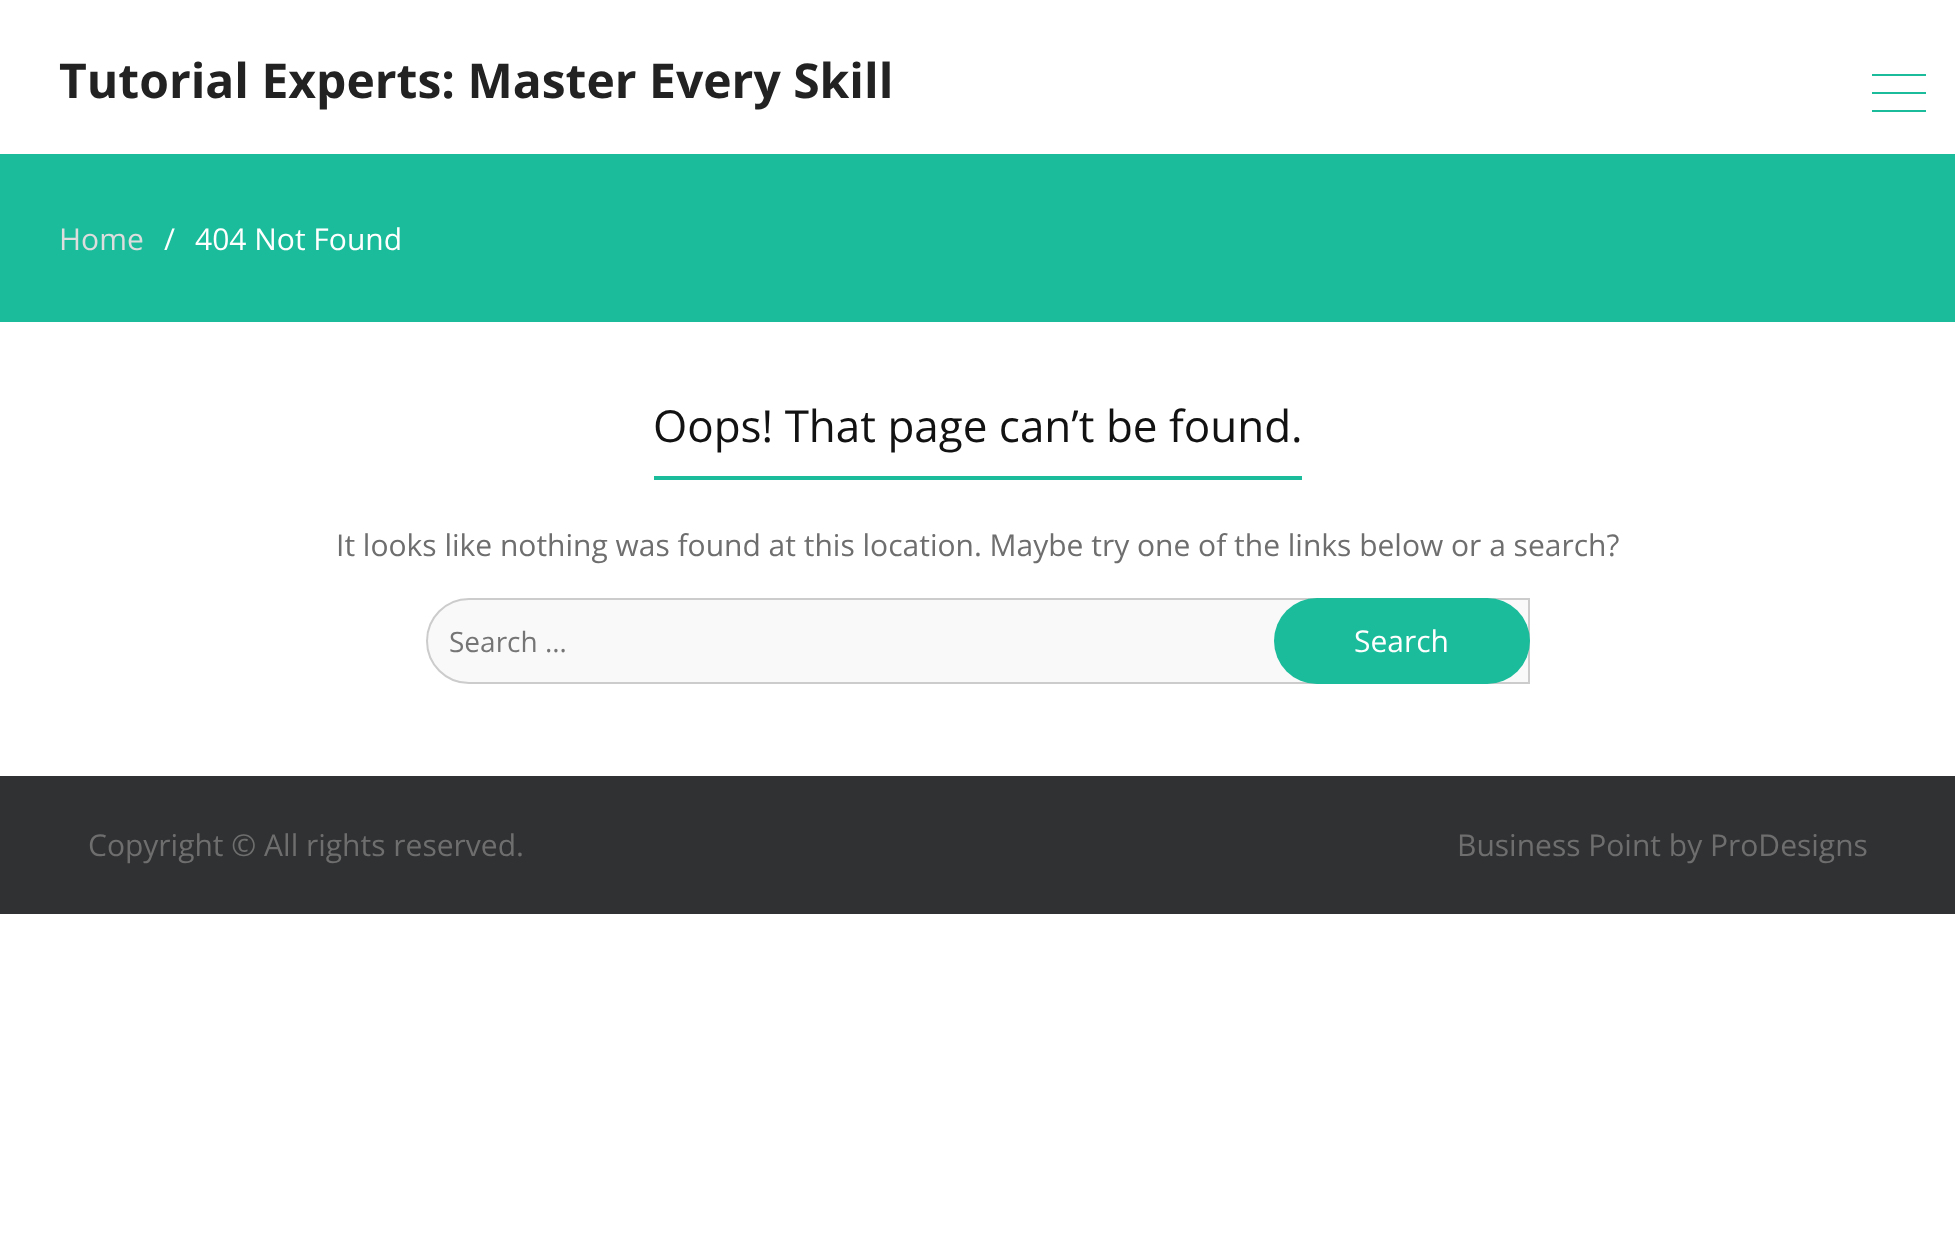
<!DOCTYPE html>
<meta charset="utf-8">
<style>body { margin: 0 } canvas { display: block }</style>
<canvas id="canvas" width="1955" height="1239"></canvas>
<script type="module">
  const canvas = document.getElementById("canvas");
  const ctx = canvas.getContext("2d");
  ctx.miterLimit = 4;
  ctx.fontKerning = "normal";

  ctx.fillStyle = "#ffffff";
  ctx.fillRect(0, 0, 1955, 1239);
  ctx.font = "bold 48px Open Sans";
  ctx.fillStyle = "#222222";
  ctx.fillText("Tutorial Experts: Master Every Skill", 59, 98);
  ctx.fillStyle = "#1bbc9b";
  ctx.fillRect(1872, 74, 54, 2);
  ctx.fillRect(1872, 92, 54, 2);
  ctx.fillRect(1872, 110, 54, 2);
  ctx.fillRect(0, 154, 1955, 168);
  ctx.font = "30px Open Sans";
  ctx.fillStyle = "#dddddd";
  ctx.fillText("Home", 59, 250);
  ctx.fillStyle = "#ffffff";
  ctx.fillText("/", 164, 250);
  ctx.fillText("404 Not Found", 195, 250);
  ctx.fillStyle = "#1bbc9b";
  ctx.fillRect(654, 476, 648, 4);
  ctx.font = "44px Open Sans";
  ctx.fillStyle = "#121212";
  ctx.fillText("Oops! That page can’t be found.", 653, 442);
  ctx.font = "30px Open Sans";
  ctx.fillStyle = "#6e6e6e";
  ctx.fillText("It looks like nothing was found at this location. Maybe try one of the links below or a search?", 336, 556);
  ctx.fillStyle = "#f9f9f9";
  ctx.beginPath();
  ctx.roundRect(427, 599, 1102, 84, [42, 0, 0, 42]);
  ctx.fill();
  ctx.strokeStyle = "#cccccc";
  ctx.lineWidth = 2;
  ctx.stroke();
  ctx.font = "28px Open Sans";
  ctx.fillStyle = "#757575";
  ctx.fillText("Search …", 449, 652);
  ctx.fillStyle = "#1bbc9b";
  ctx.beginPath();
  ctx.roundRect(1274, 598, 256, 86, 43);
  ctx.fill();
  ctx.font = "30px Open Sans";
  ctx.fillStyle = "#ffffff";
  ctx.fillText("Search", 1354, 652);
  ctx.fillStyle = "#303133";
  ctx.fillRect(0, 776, 1955, 138);
  ctx.fillStyle = "#6e6e6e";
  ctx.fillText("Copyright © All rights reserved.", 88, 856);
  ctx.fillText("Business Point by ProDesigns", 1457, 856);
</script>
